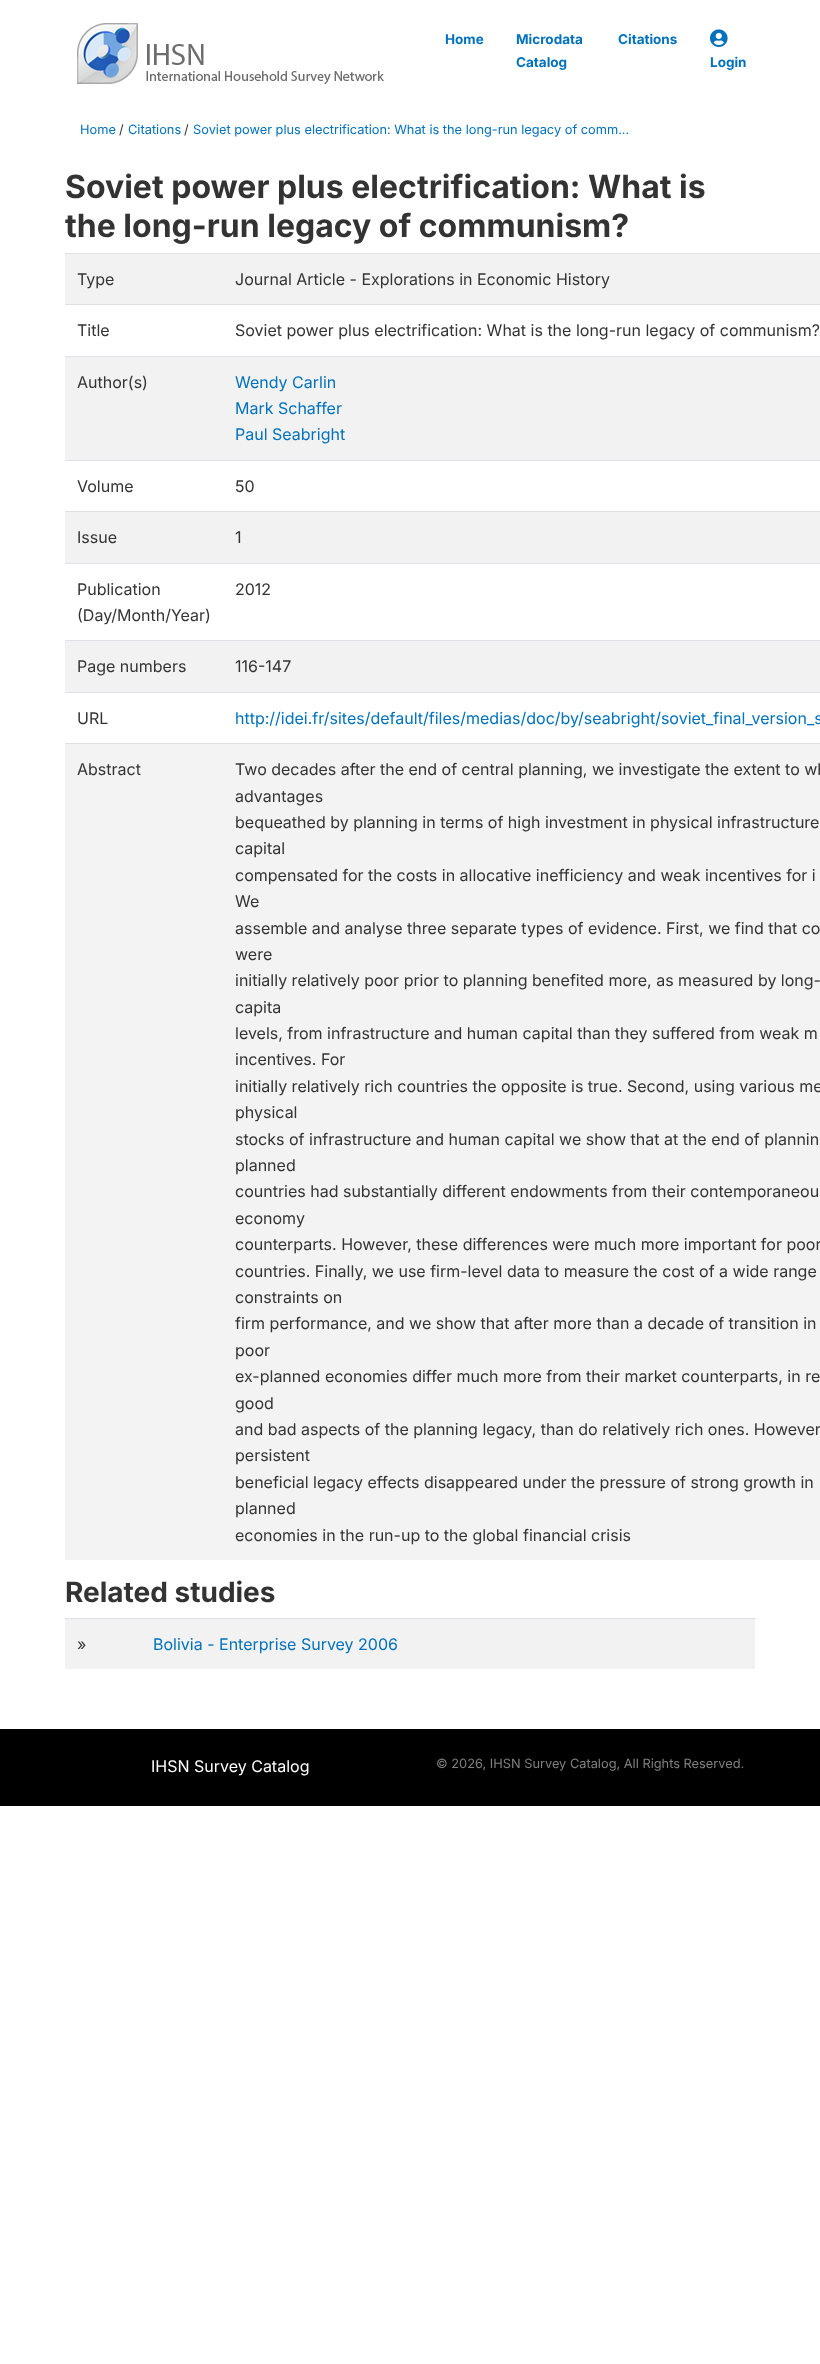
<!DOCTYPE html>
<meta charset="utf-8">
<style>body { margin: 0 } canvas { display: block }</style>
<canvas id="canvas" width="820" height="2364"></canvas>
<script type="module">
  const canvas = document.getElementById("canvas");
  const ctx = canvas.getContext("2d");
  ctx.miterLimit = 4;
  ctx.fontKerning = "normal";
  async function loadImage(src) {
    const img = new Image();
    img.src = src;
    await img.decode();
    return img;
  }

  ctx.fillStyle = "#ffffff";
  ctx.fillRect(0, 0, 820, 2364);
  ctx.drawImage(await loadImage("img1.png"), 77, 23, 307, 61);
  ctx.font = "bold 13.5px Inter";
  ctx.fillStyle = "#0071bd";
  ctx.fillText("Home", 445, 44);
  ctx.fillText("Microdata", 516, 44);
  ctx.fillText("Catalog", 516, 67);
  ctx.fillText("Citations", 618, 44);
  ctx.drawImage(await loadImage("img2.png"), 710, 29, 18, 18);
  ctx.fillText("Login", 710, 67);
  ctx.font = "12.8px Inter";
  ctx.fillText("Home", 80, 134);
  ctx.fillStyle = "#333333";
  ctx.fillText("/", 119, 134);
  ctx.fillStyle = "#0071bd";
  ctx.fillText("Citations", 128, 134);
  ctx.fillStyle = "#333333";
  ctx.fillText("/", 184, 134);
  ctx.fillStyle = "#0071bd";
  ctx.fillText("Soviet power plus electrification: What is the long-run legacy of comm...", 193, 134);
  ctx.font = "bold 32px Inter";
  ctx.fillStyle = "#333333";
  ctx.fillText("Soviet power plus electrification: What is", 65, 198);
  ctx.fillText("the long-run legacy of communism?", 65, 237);
  ctx.fillStyle = "#f2f2f2";
  ctx.fillRect(65, 254, 755, 50);
  ctx.font = "16px Inter";
  ctx.fillStyle = "#333333";
  ctx.fillText("Type", 77, 285);
  ctx.fillStyle = "#dee2e6";
  ctx.fillRect(65, 253, 755, 1);
  ctx.fillStyle = "#333333";
  ctx.fillText("Journal Article - Explorations in Economic History", 235, 285);
  ctx.fillText("Title", 77, 336);
  ctx.fillStyle = "#dee2e6";
  ctx.fillRect(65, 304, 755, 1);
  ctx.fillStyle = "#333333";
  ctx.fillText("Soviet power plus electrification: What is the long-run legacy of communism?", 235, 336);
  ctx.fillStyle = "#f2f2f2";
  ctx.fillRect(65, 357, 755, 103);
  ctx.fillStyle = "#333333";
  ctx.fillText("Author(s)", 77, 388);
  ctx.fillStyle = "#dee2e6";
  ctx.fillRect(65, 356, 755, 1);
  ctx.fillStyle = "#0071bd";
  ctx.fillText("Wendy Carlin", 235, 388);
  ctx.fillText("Mark Schaffer", 235, 414);
  ctx.fillText("Paul Seabright", 235, 440);
  ctx.fillStyle = "#333333";
  ctx.fillText("Volume", 77, 492);
  ctx.fillStyle = "#dee2e6";
  ctx.fillRect(65, 460, 755, 1);
  ctx.fillStyle = "#333333";
  ctx.fillText("50", 235, 492);
  ctx.fillStyle = "#f2f2f2";
  ctx.fillRect(65, 512, 755, 51);
  ctx.fillStyle = "#333333";
  ctx.fillText("Issue", 77, 543);
  ctx.fillStyle = "#dee2e6";
  ctx.fillRect(65, 511, 755, 1);
  ctx.fillStyle = "#333333";
  ctx.fillText("1", 235, 543);
  ctx.fillText("Publication", 77, 595);
  ctx.fillText("(Day/Month/Year)", 77, 621);
  ctx.fillStyle = "#dee2e6";
  ctx.fillRect(65, 563, 755, 1);
  ctx.fillStyle = "#333333";
  ctx.fillText("2012", 235, 595);
  ctx.fillStyle = "#f2f2f2";
  ctx.fillRect(65, 641, 755, 51);
  ctx.fillStyle = "#333333";
  ctx.fillText("Page numbers", 77, 672);
  ctx.fillStyle = "#dee2e6";
  ctx.fillRect(65, 640, 755, 1);
  ctx.fillStyle = "#333333";
  ctx.fillText("116-147", 235, 672);
  ctx.fillText("URL", 77, 724);
  ctx.fillStyle = "#dee2e6";
  ctx.fillRect(65, 692, 755, 1);
  ctx.fillStyle = "#0071bd";
  ctx.fillText("http://idei.fr/sites/default/files/medias/doc/by/seabright/soviet_final_version_s", 235, 724);
  ctx.fillStyle = "#f3f3f3";
  ctx.fillRect(65, 744, 755, 816);
  ctx.fillStyle = "#333333";
  ctx.fillText("Abstract", 77, 775);
  ctx.fillStyle = "#dee2e6";
  ctx.fillRect(65, 743, 755, 1);
  ctx.fillStyle = "#333333";
  ctx.fillText("Two decades after the end of central planning, we investigate the extent to wh", 235, 775);
  ctx.fillText("advantages", 235, 802);
  ctx.fillText("bequeathed by planning in terms of high investment in physical infrastructure", 235, 828);
  ctx.fillText("capital", 235, 854);
  ctx.fillText("compensated for the costs in allocative inefficiency and weak incentives for i", 235, 881);
  ctx.fillText("We", 235, 907);
  ctx.fillText("assemble and analyse three separate types of evidence. First, we find that co", 235, 934);
  ctx.fillText("were", 235, 960);
  ctx.fillText("initially relatively poor prior to planning benefited more, as measured by long-", 235, 986);
  ctx.fillText("capita", 235, 1013);
  ctx.fillText("levels, from infrastructure and human capital than they suffered from weak m", 235, 1039);
  ctx.fillText("incentives. For", 235, 1065);
  ctx.fillText("initially relatively rich countries the opposite is true. Second, using various me", 235, 1092);
  ctx.fillText("physical", 235, 1118);
  ctx.fillText("stocks of infrastructure and human capital we show that at the end of plannin", 235, 1145);
  ctx.fillText("planned", 235, 1171);
  ctx.fillText("countries had substantially different endowments from their contemporaneou", 235, 1197);
  ctx.fillText("economy", 235, 1224);
  ctx.fillText("counterparts. However, these differences were much more important for poor", 235, 1250);
  ctx.fillText("countries. Finally, we use firm-level data to measure the cost of a wide range", 235, 1277);
  ctx.fillText("constraints on", 235, 1303);
  ctx.fillText("firm performance, and we show that after more than a decade of transition in", 235, 1329);
  ctx.fillText("poor", 235, 1356);
  ctx.fillText("ex-planned economies differ much more from their market counterparts, in re", 235, 1382);
  ctx.fillText("good", 235, 1409);
  ctx.fillText("and bad aspects of the planning legacy, than do relatively rich ones. However", 235, 1435);
  ctx.fillText("persistent", 235, 1461);
  ctx.fillText("beneficial legacy effects disappeared under the pressure of strong growth in", 235, 1488);
  ctx.fillText("planned", 235, 1514);
  ctx.fillText("economies in the run-up to the global financial crisis", 235, 1541);
  ctx.font = "bold 28px Inter";
  ctx.fillText("Related studies", 65, 1602);
  ctx.fillStyle = "#f2f2f2";
  ctx.fillRect(65, 1619, 690, 50);
  ctx.font = "16px Inter";
  ctx.fillStyle = "#333333";
  ctx.fillText("»", 77, 1650);
  ctx.fillStyle = "#dee2e6";
  ctx.fillRect(65, 1618, 691, 1);
  ctx.fillStyle = "#0071bd";
  ctx.fillText("Bolivia - Enterprise Survey 2006", 153, 1650);
  ctx.fillStyle = "#000000";
  ctx.fillRect(0, 1729, 820, 77);
  ctx.fillStyle = "#ffffff";
  ctx.fillText("IHSN Survey Catalog", 151, 1772);
  ctx.font = "12.8px Inter";
  ctx.fillStyle = "#808080";
  ctx.fillText("© 2026, IHSN Survey Catalog, All Rights Reserved.", 436, 1768);
</script>
